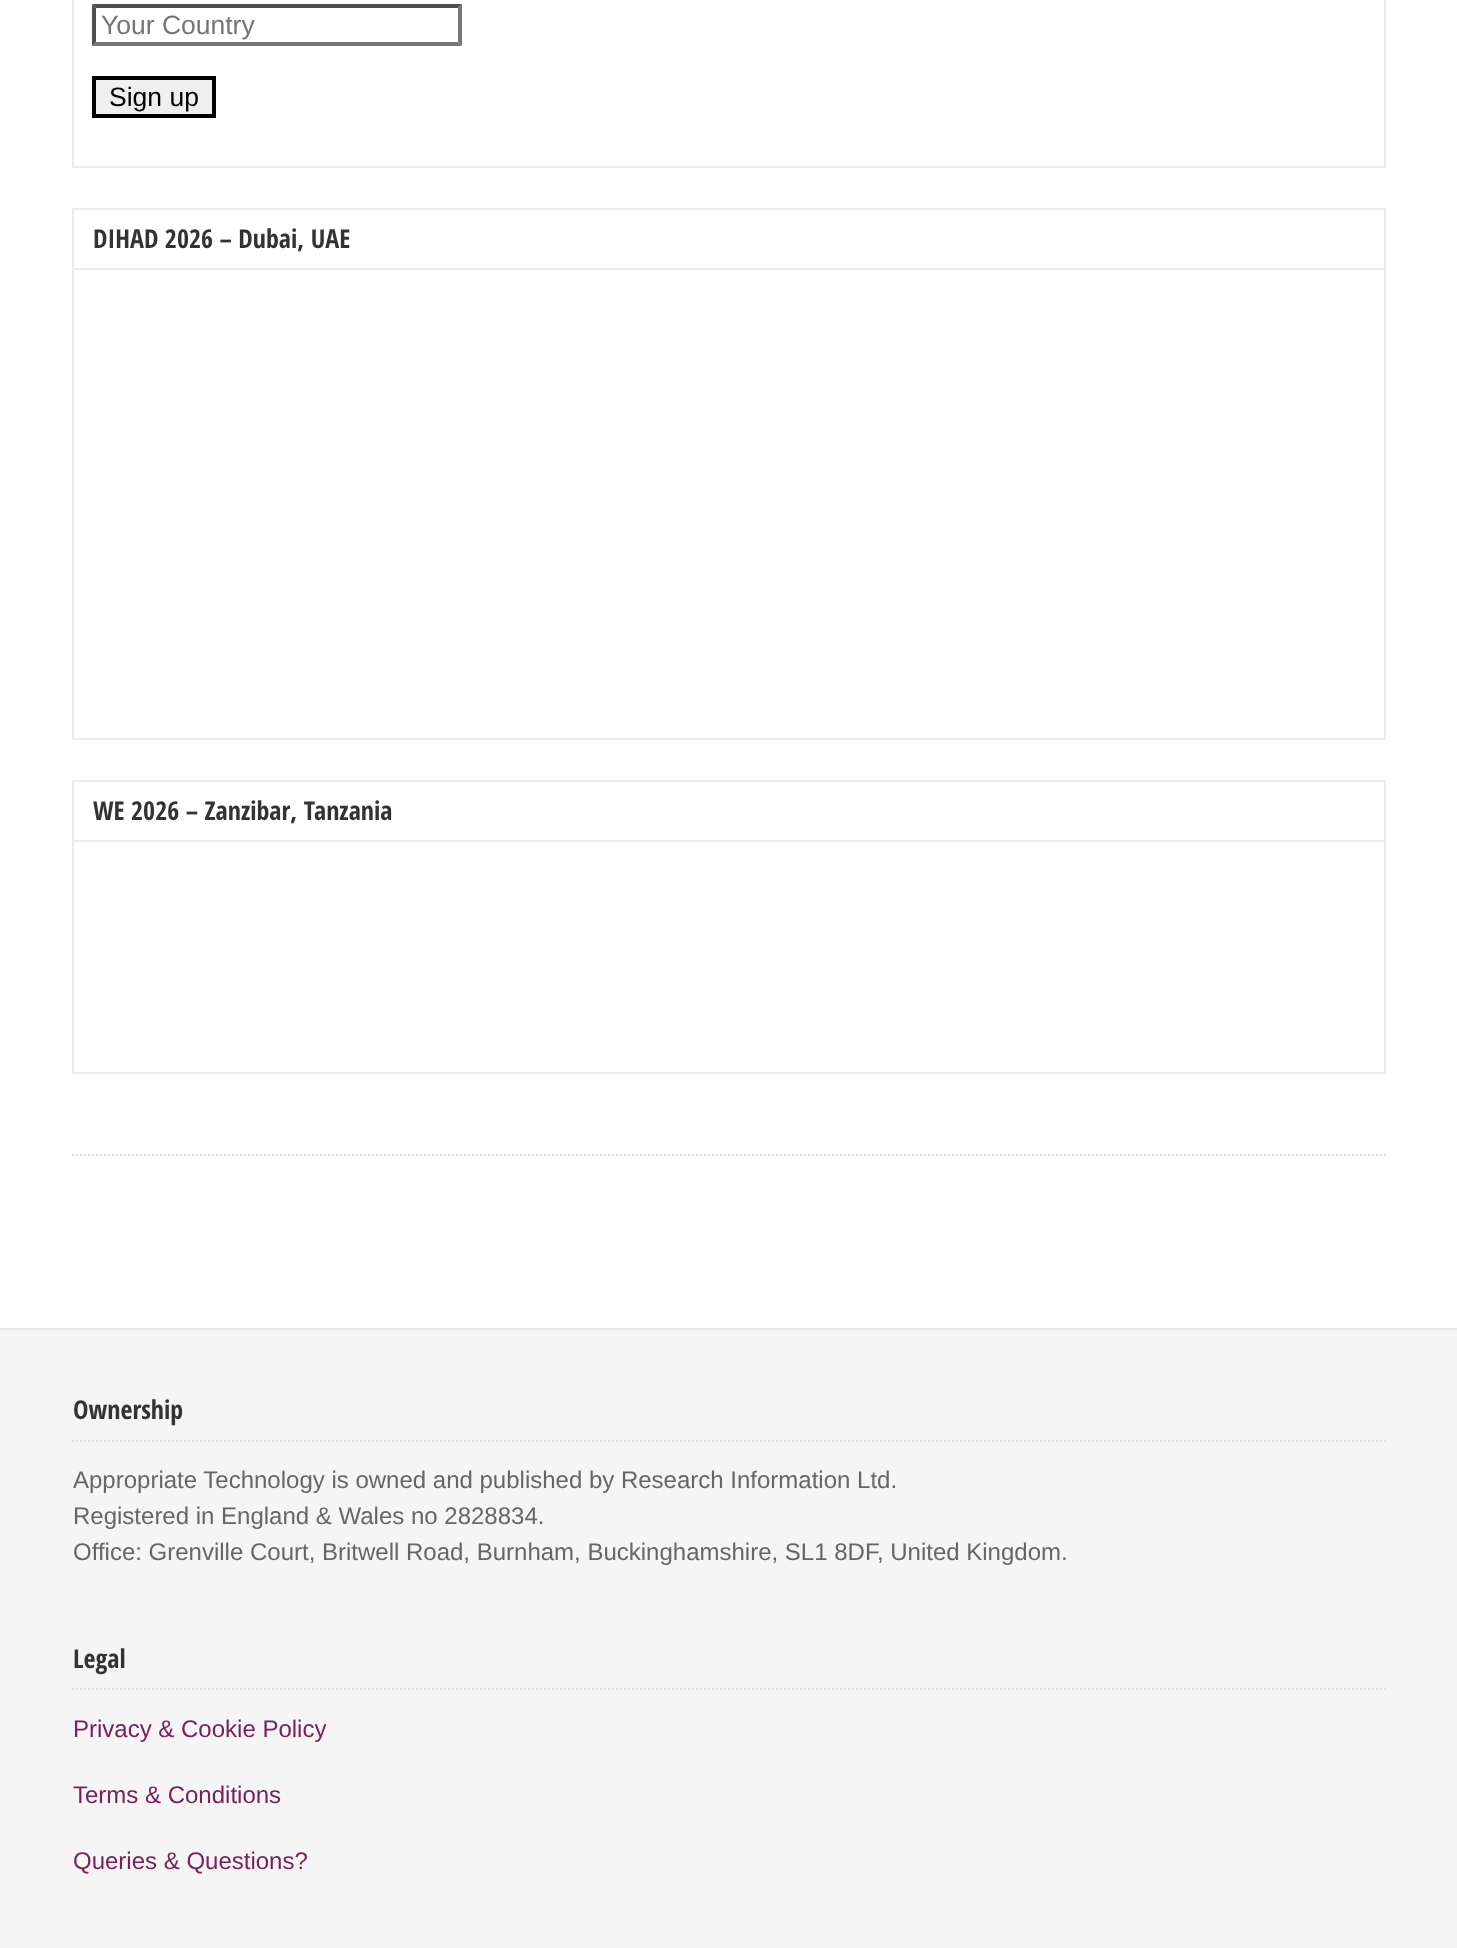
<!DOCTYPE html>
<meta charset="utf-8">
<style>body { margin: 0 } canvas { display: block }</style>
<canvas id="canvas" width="1457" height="1948"></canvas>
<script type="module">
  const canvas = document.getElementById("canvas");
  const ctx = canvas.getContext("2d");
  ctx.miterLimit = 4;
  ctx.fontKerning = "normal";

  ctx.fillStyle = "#ffffff";
  ctx.fillRect(0, 0, 1457, 1948);
  ctx.strokeStyle = "#ebebeb";
  ctx.lineWidth = 2;
  ctx.strokeRect(73, -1, 1312, 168);
  ctx.fillStyle = "#4f4f4f";
  ctx.beginPath();
  ctx.moveTo(92, 4);
  ctx.lineTo(462, 4);
  ctx.lineTo(458, 8);
  ctx.lineTo(96, 8);
  ctx.closePath();
  ctx.fill();
  ctx.fillStyle = "#767676";
  ctx.beginPath();
  ctx.moveTo(462, 4);
  ctx.lineTo(462, 46);
  ctx.lineTo(458, 42);
  ctx.lineTo(458, 8);
  ctx.closePath();
  ctx.fill();
  ctx.beginPath();
  ctx.moveTo(462, 46);
  ctx.lineTo(92, 46);
  ctx.lineTo(96, 42);
  ctx.lineTo(458, 42);
  ctx.closePath();
  ctx.fill();
  ctx.fillStyle = "#4f4f4f";
  ctx.beginPath();
  ctx.moveTo(92, 46);
  ctx.lineTo(92, 4);
  ctx.lineTo(96, 8);
  ctx.lineTo(96, 42);
  ctx.closePath();
  ctx.fill();
  ctx.font = "26.5px Liberation Sans";
  ctx.fillStyle = "#757575";
  ctx.fillText("Your Country", 101, 34);
  ctx.fillStyle = "#efefef";
  ctx.beginPath();
  ctx.rect(94, 78, 120, 38);
  ctx.fill();
  ctx.strokeStyle = "#000000";
  ctx.lineWidth = 4;
  ctx.stroke();
  ctx.fillStyle = "#000000";
  ctx.fillText("Sign up", 109, 106);
  ctx.strokeStyle = "#ebebeb";
  ctx.lineWidth = 2;
  ctx.strokeRect(73, 209, 1312, 530);
  ctx.fillStyle = "#ebebeb";
  ctx.fillRect(74, 268, 1310, 2);
  ctx.font = "bold 26px Open Sans Condensed";
  ctx.fillStyle = "#333333";
  ctx.fillText("DIHAD 2026 – Dubai, UAE", 93, 248);
  ctx.strokeRect(73, 781, 1312, 292);
  ctx.fillStyle = "#ebebeb";
  ctx.fillRect(74, 840, 1310, 2);
  ctx.fillStyle = "#333333";
  ctx.fillText("WE 2026 – Zanzibar, Tanzania", 93, 820);
  ctx.beginPath();
  ctx.moveTo(72, 1155);
  ctx.lineTo(1386, 1155);
  ctx.strokeStyle = "#dddddd";
  ctx.setLineDash([2, 2]);
  ctx.stroke();
  ctx.fillStyle = "#f5f5f5";
  ctx.fillRect(0, 1330, 1457, 618);
  ctx.fillStyle = "#e5e5e5";
  ctx.fillRect(0, 1328, 1457, 2);
  ctx.beginPath();
  ctx.moveTo(72, 1441);
  ctx.lineTo(1386, 1441);
  ctx.stroke();
  ctx.fillStyle = "#333333";
  ctx.fillText("Ownership", 73, 1419);
  ctx.font = "24px Liberation Sans";
  ctx.fillStyle = "#666666";
  ctx.fillText("Appropriate Technology is owned and published by Research Information Ltd.", 73, 1488);
  ctx.fillText("Registered in England & Wales no 2828834.", 73, 1524);
  ctx.fillText("Office: Grenville Court, Britwell Road, Burnham, Buckinghamshire, SL1 8DF, United Kingdom.", 73, 1560);
  ctx.beginPath();
  ctx.moveTo(72, 1689);
  ctx.lineTo(1386, 1689);
  ctx.stroke();
  ctx.font = "bold 26px Open Sans Condensed";
  ctx.fillStyle = "#333333";
  ctx.fillText("Legal", 73, 1668);
  ctx.font = "24px Liberation Sans";
  ctx.fillStyle = "#77225b";
  ctx.fillText("Privacy & Cookie Policy", 73, 1737);
  ctx.fillText("Terms & Conditions", 73, 1803);
  ctx.fillText("Queries & Questions?", 73, 1869);
</script>
